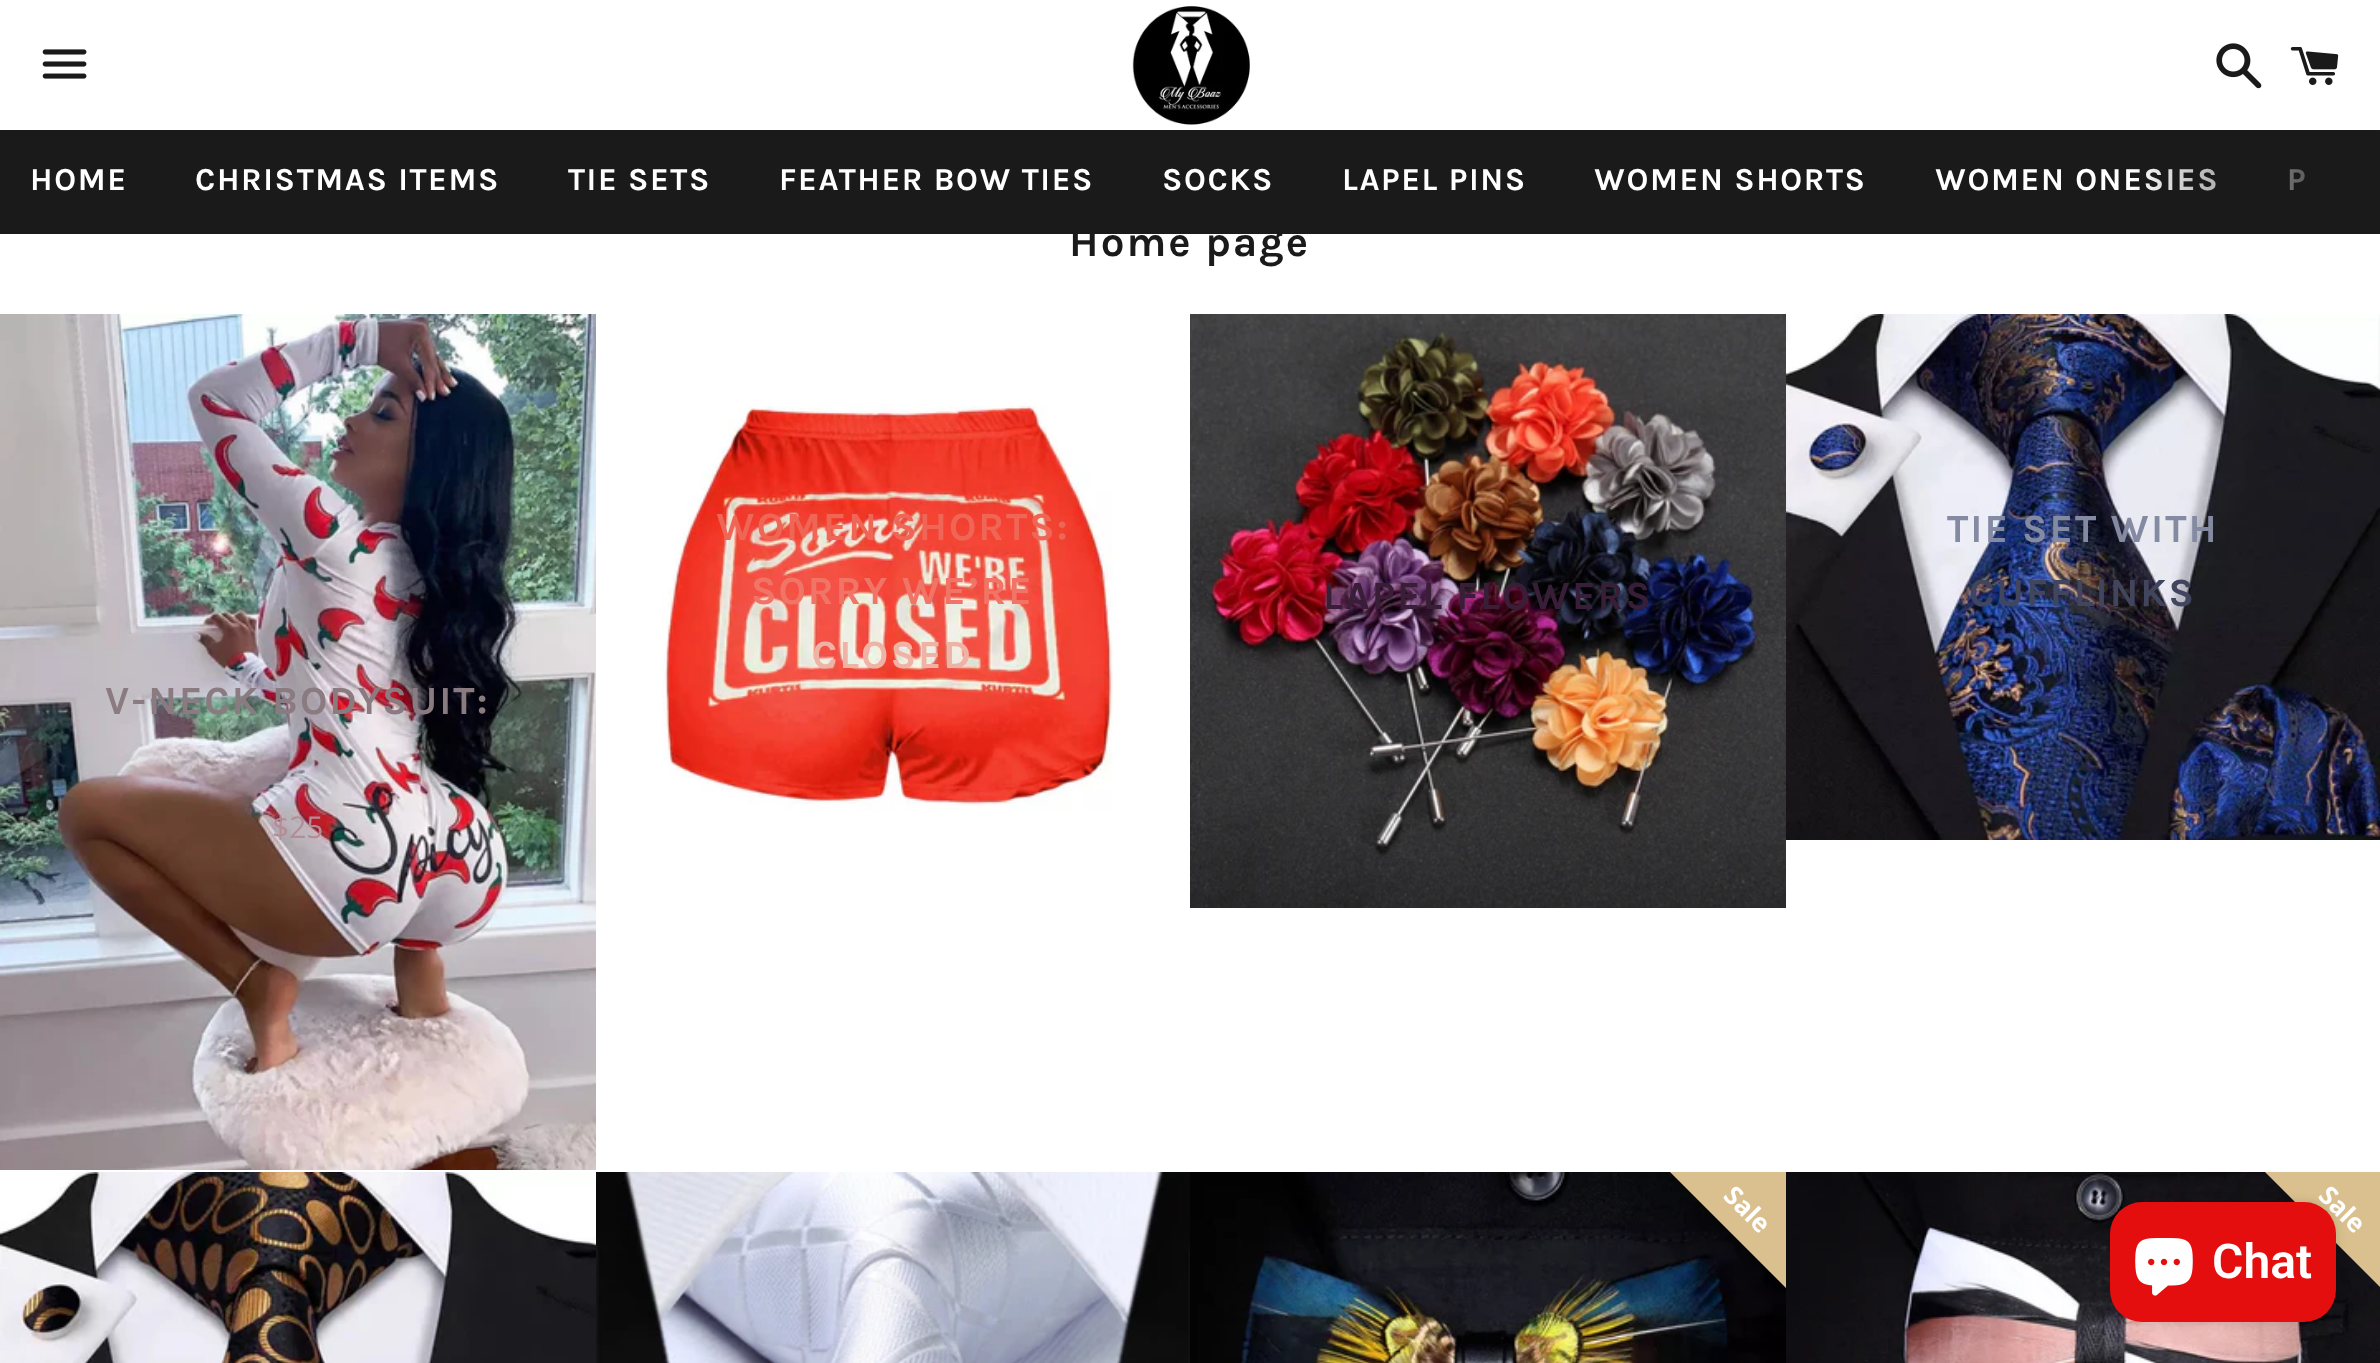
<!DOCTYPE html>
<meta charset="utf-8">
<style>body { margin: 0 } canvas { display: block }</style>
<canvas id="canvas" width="2380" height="1363"></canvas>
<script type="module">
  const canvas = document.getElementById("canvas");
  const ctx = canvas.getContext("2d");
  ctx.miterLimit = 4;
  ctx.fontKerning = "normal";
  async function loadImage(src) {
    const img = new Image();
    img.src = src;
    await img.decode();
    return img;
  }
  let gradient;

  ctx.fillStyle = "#ffffff";
  ctx.fillRect(0, 0, 2380, 1363);
  ctx.drawImage(await loadImage("img1.png"), 42, 49, 45, 30);
  ctx.drawImage(await loadImage("img2.png"), 1132, 6, 118, 119);
  ctx.drawImage(await loadImage("img3.png"), 2216, 43, 46, 46);
  ctx.drawImage(await loadImage("img4.png"), 2290, 47, 49, 38);
  ctx.fillStyle = "#1a1a1a";
  ctx.fillRect(0, 130, 2379, 104);
  ctx.letterSpacing = "1.6px";
  ctx.font = "bold 32px Karla";
  ctx.fillStyle = "#ffffff";
  ctx.fillText("WOMEN ONESIES", 1935, 190);
  ctx.fillText("P", 2287, 190);
  gradient = ctx.createLinearGradient(2130, 182, 2380, 182);
  gradient.addColorStop(0, "rgba(26, 26, 26, 0)");
  gradient.addColorStop(1, "#1a1a1a");
  ctx.fillStyle = gradient;
  ctx.fillRect(2135, 130, 245, 104);
  ctx.fillStyle = "#ffffff";
  ctx.fillText("HOME", 30, 190);
  ctx.fillText("CHRISTMAS ITEMS", 195, 190);
  ctx.fillText("TIE SETS", 568, 190);
  ctx.fillText("FEATHER BOW TIES", 779, 190);
  ctx.fillText("SOCKS", 1162, 190);
  ctx.fillText("LAPEL PINS", 1342, 190);
  ctx.fillText("WOMEN SHORTS", 1594, 190);
  ctx.letterSpacing = "2px";
  ctx.font = "bold 42px Karla";
  ctx.fillStyle = "#1a1a1a";
  ctx.fillText("Home page", 1069, 256);
  ctx.drawImage(await loadImage("img5.png"), 662, 405, 451, 406);
  ctx.font = "bold 40px Karla";
  ctx.fillStyle = "#f06656";
  ctx.fillText("WOMEN SHORTS:", 716, 540);
  ctx.fillStyle = "#f17567";
  ctx.fillText("SORRY WE’RE", 751, 604);
  ctx.fillStyle = "#efb3a6";
  ctx.fillText("CLOSED", 812, 668);
  ctx.drawImage(await loadImage("img6.png"), 1190, 314, 596, 594);
  ctx.fillStyle = "#391e37";
  ctx.fillText("LAPEL FLOWERS", 1323, 609);
  ctx.drawImage(await loadImage("img7.png"), 1786, 314, 594, 526);
  ctx.fillStyle = "#848aa2";
  ctx.fillText("TIE SET WITH", 1947, 542);
  ctx.fillStyle = "#42455e";
  ctx.fillText("CUFFLINKS", 1969, 606);
  ctx.drawImage(await loadImage("img8.png"), 0, 314, 596, 856);
  ctx.fillStyle = "#8a7b81";
  ctx.fillText("V-NECK BODYSUIT:", 105, 714);
  ctx.letterSpacing = "0px";
  ctx.font = "30px Open Sans";
  ctx.fillStyle = "#b48c96";
  ctx.fillText("$25", 272, 838);
  ctx.drawImage(await loadImage("img9.png"), 0, 1172, 596, 191);
  ctx.drawImage(await loadImage("img10.png"), 596, 1172, 594, 191);
  ctx.drawImage(await loadImage("img11.png"), 1190, 1172, 596, 191);
  ctx.save();
  ctx.beginPath();
  ctx.rect(1190, 1172, 596, 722);
  ctx.clip();
  ctx.fillStyle = "#dac08e";
  ctx.beginPath();
  ctx.moveTo(1677, 997);
  ctx.lineTo(1960, 1280);
  ctx.lineTo(1869, 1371);
  ctx.lineTo(1586, 1088);
  ctx.closePath();
  ctx.fill();
  ctx.restore();
  ctx.font = "bold 26px Open Sans";
  ctx.fillStyle = "#ffffff";
  ctx.save();
  ctx.translate(1722, 1197);
  ctx.rotate(45 * Math.PI / 180);
  ctx.fillText("Sale", 0, 0);
  ctx.restore();
  ctx.drawImage(await loadImage("img12.png"), 1786, 1172, 594, 191);
  ctx.save();
  ctx.beginPath();
  ctx.rect(1786, 1172, 594, 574);
  ctx.clip();
  ctx.fillStyle = "#dac08e";
  ctx.beginPath();
  ctx.moveTo(2272, 997);
  ctx.lineTo(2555, 1280);
  ctx.lineTo(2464, 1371);
  ctx.lineTo(2181, 1088);
  ctx.closePath();
  ctx.fill();
  ctx.restore();
  ctx.save();
  ctx.translate(2317, 1197);
  ctx.rotate(45 * Math.PI / 180);
  ctx.fillText("Sale", 0, 0);
  ctx.restore();
  ctx.fillStyle = "rgba(0, 0, 0, 0.15)";
  ctx.filter = "blur(5px)";
  ctx.beginPath();
  ctx.roundRect(2110, 1202, 226, 120, 32);
  ctx.fill();
  ctx.filter = "none";
  ctx.fillStyle = "#e40e0e";
  ctx.beginPath();
  ctx.roundRect(2110, 1202, 226, 120, 32);
  ctx.fill();
  ctx.drawImage(await loadImage("img13.png"), 2135, 1238, 58, 58);
  ctx.font = "600 48px Roboto";
  ctx.fillStyle = "#ffffff";
  ctx.fillText("Chat", 2212, 1278);
</script>
